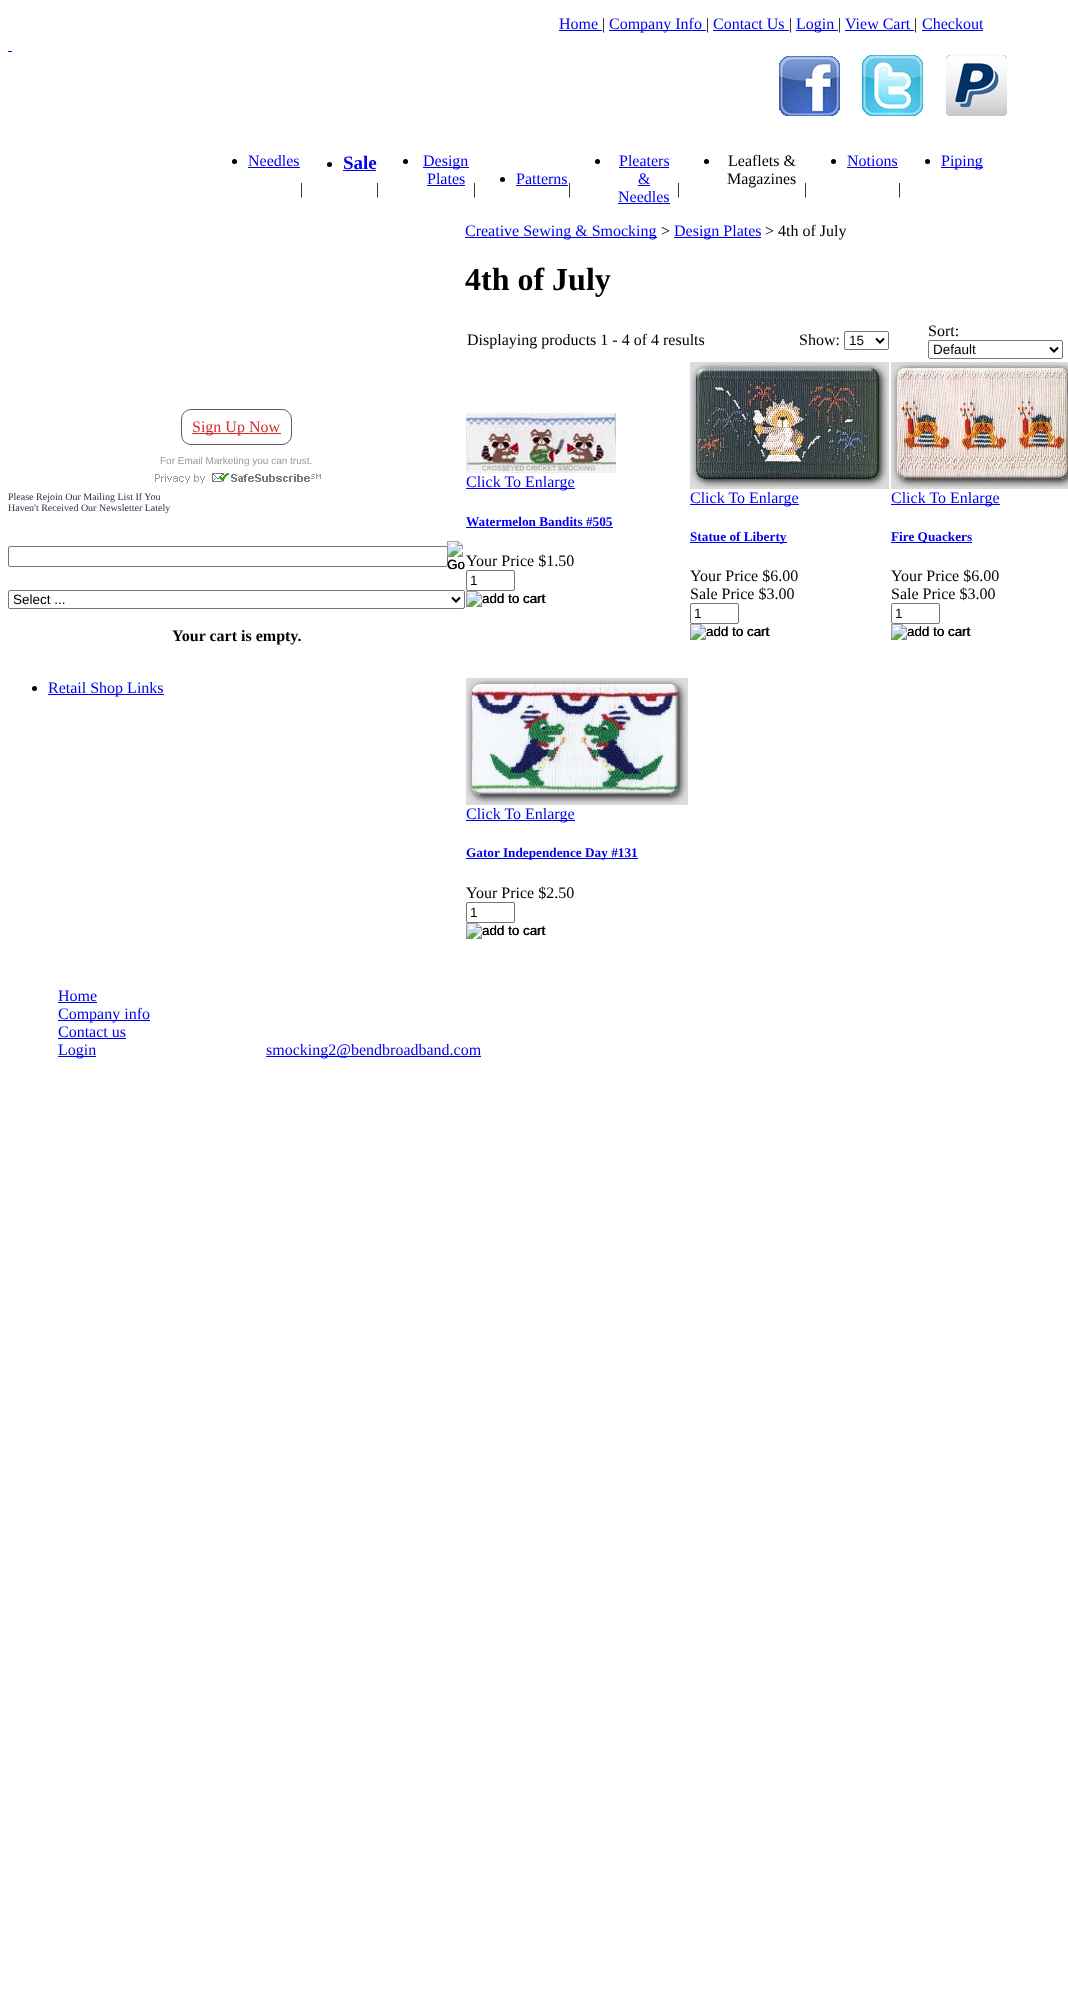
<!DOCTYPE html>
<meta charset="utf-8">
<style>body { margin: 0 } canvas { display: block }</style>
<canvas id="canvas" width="1068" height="1998"></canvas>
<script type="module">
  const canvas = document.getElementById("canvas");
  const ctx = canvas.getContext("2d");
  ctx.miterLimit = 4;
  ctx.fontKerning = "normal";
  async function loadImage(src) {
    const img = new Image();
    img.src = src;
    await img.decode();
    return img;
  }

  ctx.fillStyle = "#ffffff";
  ctx.fillRect(0, 0, 1068, 1998);
  ctx.font = "16px Liberation Serif";
  ctx.fillStyle = "#0000ee";
  ctx.fillText("Home", 559, 29);
  ctx.fillRect(559, 30, 43, 1);
  ctx.fillStyle = "#000000";
  ctx.fillText("|", 602, 29);
  ctx.fillStyle = "#0000ee";
  ctx.fillRect(609, 30, 97, 1);
  ctx.fillText("Company Info", 609, 29);
  ctx.fillStyle = "#000000";
  ctx.fillText("|", 706, 29);
  ctx.fillStyle = "#0000ee";
  ctx.fillText("Contact Us", 713, 29);
  ctx.fillRect(713, 30, 76, 1);
  ctx.fillStyle = "#000000";
  ctx.fillText("|", 789, 29);
  ctx.fillStyle = "#0000ee";
  ctx.fillRect(796, 30, 42, 1);
  ctx.fillText("Login", 796, 29);
  ctx.fillStyle = "#000000";
  ctx.fillText("|", 838, 29);
  ctx.fillStyle = "#0000ee";
  ctx.fillText("View Cart", 845, 29);
  ctx.fillRect(845, 30, 69, 1);
  ctx.fillStyle = "#000000";
  ctx.fillText("|", 914, 29);
  ctx.fillStyle = "#0000ee";
  ctx.fillText("Checkout", 922, 29);
  ctx.fillRect(922, 30, 61, 1);
  ctx.fillRect(8, 51, 4, 1);
  ctx.drawImage(await loadImage("img1.png"), 779, 56, 61, 60);
  ctx.drawImage(await loadImage("img2.png"), 862, 55, 61, 61);
  ctx.drawImage(await loadImage("img3.png"), 946, 55, 61, 61);
  ctx.fillStyle = "#000000";
  ctx.beginPath();
  ctx.arc(234.5, 161.5, 2.5, 0, Math.PI * 2);
  ctx.fill();
  ctx.fillStyle = "#0000ee";
  ctx.fillText("Needles", 248, 166);
  ctx.fillRect(248, 167, 52, 1);
  ctx.fillStyle = "#000000";
  ctx.beginPath();
  ctx.arc(329.5, 164.5, 2.5, 0, Math.PI * 2);
  ctx.fill();
  ctx.font = "bold 19px Liberation Serif";
  ctx.fillStyle = "#0000ee";
  ctx.fillText("Sale", 343, 169);
  ctx.fillRect(343, 170, 33, 1);
  ctx.fillStyle = "#000000";
  ctx.beginPath();
  ctx.arc(405.5, 161.5, 2.5, 0, Math.PI * 2);
  ctx.fill();
  ctx.fillStyle = "#0000ee";
  ctx.fillRect(423, 167, 46, 1);
  ctx.font = "16px Liberation Serif";
  ctx.fillText("Design", 423, 166);
  ctx.fillText("Plates", 427, 184);
  ctx.fillRect(427, 185, 38, 1);
  ctx.fillStyle = "#000000";
  ctx.beginPath();
  ctx.arc(597.5, 161.5, 2.5, 0, Math.PI * 2);
  ctx.fill();
  ctx.fillStyle = "#0000ee";
  ctx.fillText("Pleaters", 619, 166);
  ctx.fillRect(619, 167, 50, 1);
  ctx.fillText("&", 638, 184);
  ctx.fillRect(638, 185, 12, 1);
  ctx.fillText("Needles", 618, 202);
  ctx.fillRect(618, 203, 52, 1);
  ctx.fillStyle = "#000000";
  ctx.beginPath();
  ctx.arc(706.5, 161.5, 2.5, 0, Math.PI * 2);
  ctx.fill();
  ctx.fillText("Leaflets &", 728, 166);
  ctx.fillText("Magazines", 727, 184);
  ctx.beginPath();
  ctx.arc(833.5, 161.5, 2.5, 0, Math.PI * 2);
  ctx.fill();
  ctx.fillStyle = "#0000ee";
  ctx.fillText("Notions", 847, 166);
  ctx.fillRect(847, 167, 51, 1);
  ctx.fillStyle = "#000000";
  ctx.beginPath();
  ctx.arc(927.5, 161.5, 2.5, 0, Math.PI * 2);
  ctx.fill();
  ctx.fillStyle = "#0000ee";
  ctx.fillRect(941, 167, 42, 1);
  ctx.fillText("Piping", 941, 166);
  ctx.fillStyle = "#000000";
  ctx.beginPath();
  ctx.arc(502.5, 179.5, 2.5, 0, Math.PI * 2);
  ctx.fill();
  ctx.fillStyle = "#0000ee";
  ctx.fillText("Patterns", 516, 184);
  ctx.fillRect(516, 185, 52, 1);
  ctx.fillStyle = "#000000";
  ctx.fillText("|", 300, 194);
  ctx.fillText("|", 376, 194);
  ctx.fillText("|", 473, 194);
  ctx.fillText("|", 568, 194);
  ctx.fillText("|", 677, 194);
  ctx.fillText("|", 804, 194);
  ctx.fillText("|", 898, 194);
  ctx.beginPath();
  ctx.roundRect(181.5, 409.5, 110, 35, 9.5);
  ctx.strokeStyle = "#5b5b5b";
  ctx.stroke();
  ctx.fillStyle = "#d52c2a";
  ctx.fillRect(192, 433, 89, 1);
  ctx.fillText("Sign Up Now", 192, 432);
  ctx.font = "10px Liberation Sans";
  ctx.fillStyle = "#999999";
  ctx.fillText("For Email Marketing you can trust.", 160, 464);
  ctx.drawImage(await loadImage("img4.png"), 155, 473, 166, 11);
  ctx.font = "10px Liberation Serif";
  ctx.fillStyle = "#372940";
  ctx.fillText("Please Rejoin Our Mailing List If You", 8, 500);
  ctx.fillText("Haven't Received Our Newsletter Lately", 8, 511);
  ctx.beginPath();
  ctx.roundRect(8.5, 546.5, 439, 20, 1.5);
  ctx.strokeStyle = "#767676";
  ctx.stroke();
  ctx.drawImage(await loadImage("img5.png"), 447, 541, 18, 28);
  ctx.font = "13.5px Liberation Sans";
  ctx.fillStyle = "#000000";
  ctx.fillText("Go", 447, 569);
  ctx.beginPath();
  ctx.roundRect(8.5, 590.5, 456, 18, 1.5);
  ctx.stroke();
  ctx.beginPath();
  ctx.moveTo(452, 597.5);
  ctx.lineTo(456, 601.5);
  ctx.lineTo(460, 597.5);
  ctx.strokeStyle = "#000000";
  ctx.lineWidth = 2;
  ctx.stroke();
  ctx.fillText("Select ...", 13, 604);
  ctx.font = "bold 16px Liberation Serif";
  ctx.fillText("Your cart is empty.", 172, 641);
  ctx.beginPath();
  ctx.arc(34.5, 688.5, 2.5, 0, Math.PI * 2);
  ctx.fill();
  ctx.fillStyle = "#0000ee";
  ctx.fillRect(48, 694, 116, 1);
  ctx.font = "16px Liberation Serif";
  ctx.fillText("Retail Shop Links", 48, 693);
  ctx.fillRect(465, 237, 192, 1);
  ctx.fillText("Creative Sewing & Smocking", 465, 236);
  ctx.fillStyle = "#000000";
  ctx.fillText(">", 661, 236);
  ctx.fillStyle = "#0000ee";
  ctx.fillRect(674, 237, 87, 1);
  ctx.fillText("Design Plates", 674, 236);
  ctx.fillStyle = "#000000";
  ctx.fillText("> 4th of July", 765, 236);
  ctx.font = "bold 32px Liberation Serif";
  ctx.fillText("4th of July", 465, 290);
  ctx.font = "16px Liberation Serif";
  ctx.fillText("Displaying products 1 - 4 of 4 results", 467, 345);
  ctx.fillText("Show:", 799, 345);
  ctx.beginPath();
  ctx.roundRect(844.5, 331.5, 44, 18, 1.5);
  ctx.strokeStyle = "#767676";
  ctx.lineWidth = 1;
  ctx.stroke();
  ctx.beginPath();
  ctx.moveTo(876, 338.5);
  ctx.lineTo(880, 342.5);
  ctx.lineTo(884, 338.5);
  ctx.strokeStyle = "#000000";
  ctx.lineWidth = 2;
  ctx.stroke();
  ctx.font = "13.5px Liberation Sans";
  ctx.fillText("15", 849, 345);
  ctx.font = "16px Liberation Serif";
  ctx.fillText("Sort:", 928, 336);
  ctx.beginPath();
  ctx.roundRect(928.5, 340.5, 134, 18, 1.5);
  ctx.strokeStyle = "#767676";
  ctx.lineWidth = 1;
  ctx.stroke();
  ctx.beginPath();
  ctx.moveTo(1050, 347.5);
  ctx.lineTo(1054, 351.5);
  ctx.lineTo(1058, 347.5);
  ctx.strokeStyle = "#000000";
  ctx.lineWidth = 2;
  ctx.stroke();
  ctx.font = "13.5px Liberation Sans";
  ctx.fillText("Default", 933, 354);
  ctx.drawImage(await loadImage("img6.png"), 466, 413, 150, 60);
  ctx.fillStyle = "#0000ee";
  ctx.fillRect(466, 488, 109, 1);
  ctx.font = "16px Liberation Serif";
  ctx.fillText("Click To Enlarge", 466, 487);
  ctx.font = "bold 13.25px Liberation Serif";
  ctx.fillText("Watermelon Bandits #505", 466, 526);
  ctx.fillRect(466, 527, 147, 1);
  ctx.font = "16px Liberation Serif";
  ctx.fillStyle = "#000000";
  ctx.fillText("Your Price $1.50", 466, 566);
  ctx.beginPath();
  ctx.roundRect(466.5, 570.5, 48, 20, 1.5);
  ctx.strokeStyle = "#767676";
  ctx.lineWidth = 1;
  ctx.stroke();
  ctx.font = "13.5px Liberation Sans";
  ctx.fillText("1", 470, 585);
  ctx.drawImage(await loadImage("img7.png"), 466, 591, 79, 16);
  ctx.fillText("add to cart", 482, 603);
  ctx.drawImage(await loadImage("img8.png"), 690, 362, 199, 127);
  ctx.fillStyle = "#0000ee";
  ctx.fillRect(690, 504, 109, 1);
  ctx.font = "16px Liberation Serif";
  ctx.fillText("Click To Enlarge", 690, 503);
  ctx.fillRect(690, 542, 97, 1);
  ctx.font = "bold 13.25px Liberation Serif";
  ctx.fillText("Statue of Liberty", 690, 541);
  ctx.font = "16px Liberation Serif";
  ctx.fillStyle = "#000000";
  ctx.fillText("Your Price $6.00", 690, 581);
  ctx.fillText("Sale Price $3.00", 690, 599);
  ctx.beginPath();
  ctx.roundRect(690.5, 603.5, 48, 20, 1.5);
  ctx.stroke();
  ctx.font = "13.5px Liberation Sans";
  ctx.fillText("1", 694, 618);
  ctx.drawImage(await loadImage("img7.png"), 690, 624, 79, 16);
  ctx.fillText("add to cart", 706, 636);
  ctx.drawImage(await loadImage("img9.png"), 891, 362, 177, 127);
  ctx.fillStyle = "#0000ee";
  ctx.fillRect(891, 504, 109, 1);
  ctx.font = "16px Liberation Serif";
  ctx.fillText("Click To Enlarge", 891, 503);
  ctx.fillRect(891, 542, 81, 1);
  ctx.font = "bold 13.25px Liberation Serif";
  ctx.fillText("Fire Quackers", 891, 541);
  ctx.font = "16px Liberation Serif";
  ctx.fillStyle = "#000000";
  ctx.fillText("Your Price $6.00", 891, 581);
  ctx.fillText("Sale Price $3.00", 891, 599);
  ctx.beginPath();
  ctx.roundRect(891.5, 603.5, 48, 20, 1.5);
  ctx.stroke();
  ctx.font = "13.5px Liberation Sans";
  ctx.fillText("1", 895, 618);
  ctx.drawImage(await loadImage("img7.png"), 891, 624, 79, 16);
  ctx.fillText("add to cart", 907, 636);
  ctx.drawImage(await loadImage("img10.png"), 466, 678, 222, 127);
  ctx.fillStyle = "#0000ee";
  ctx.fillRect(466, 820, 109, 1);
  ctx.font = "16px Liberation Serif";
  ctx.fillText("Click To Enlarge", 466, 819);
  ctx.fillRect(466, 858, 172, 1);
  ctx.font = "bold 13.25px Liberation Serif";
  ctx.fillText("Gator Independence Day #131", 466, 857);
  ctx.font = "16px Liberation Serif";
  ctx.fillStyle = "#000000";
  ctx.fillText("Your Price $2.50", 466, 898);
  ctx.beginPath();
  ctx.roundRect(466.5, 902.5, 48, 20, 1.5);
  ctx.stroke();
  ctx.font = "13.5px Liberation Sans";
  ctx.fillText("1", 470, 917);
  ctx.drawImage(await loadImage("img7.png"), 466, 923, 79, 16);
  ctx.fillText("add to cart", 482, 935);
  ctx.font = "16px Liberation Serif";
  ctx.fillStyle = "#0000ee";
  ctx.fillText("Home", 58, 1001);
  ctx.fillRect(58, 1002, 39, 1);
  ctx.fillRect(58, 1020, 92, 1);
  ctx.fillText("Company info", 58, 1019);
  ctx.fillText("Contact us", 58, 1037);
  ctx.fillRect(58, 1038, 68, 1);
  ctx.fillRect(58, 1056, 38, 1);
  ctx.fillText("Login", 58, 1055);
  ctx.fillRect(266, 1056, 215, 1);
  ctx.fillText("smocking2@bendbroadband.com", 266, 1055);
</script>
